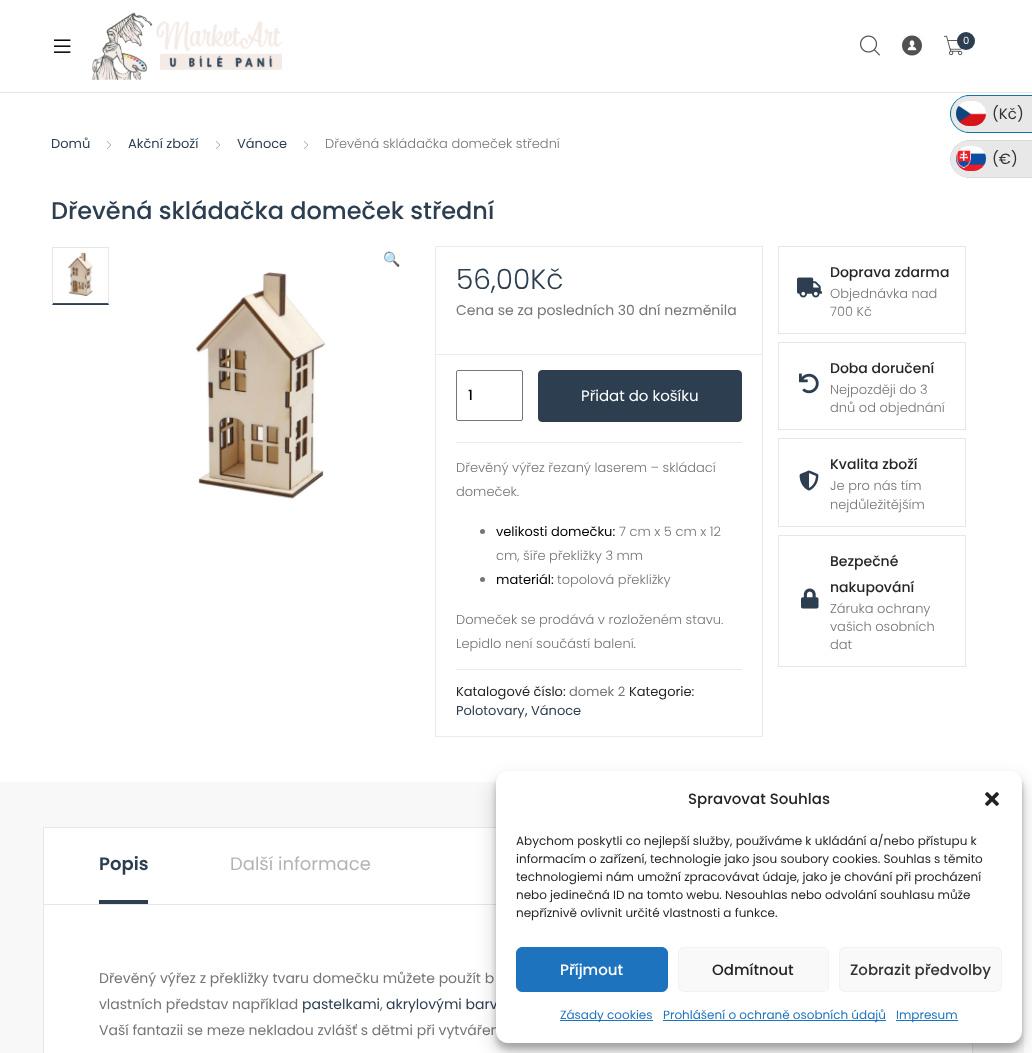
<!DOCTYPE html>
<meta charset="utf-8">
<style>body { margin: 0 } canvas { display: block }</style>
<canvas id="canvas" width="1032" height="1053"></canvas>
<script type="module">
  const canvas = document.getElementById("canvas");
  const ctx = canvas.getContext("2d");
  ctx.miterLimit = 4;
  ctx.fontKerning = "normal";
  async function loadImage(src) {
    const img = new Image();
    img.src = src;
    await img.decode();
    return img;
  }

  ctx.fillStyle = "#ffffff";
  ctx.fillRect(0, 0, 1032, 1053);
  ctx.fillStyle = "#e6e6e6";
  ctx.fillRect(0, 92, 1032, 1);
  ctx.drawImage(await loadImage("img1.png"), 54, 39, 17, 14);
  ctx.drawImage(await loadImage("img2.png"), 91, 12, 191, 68);
  ctx.drawImage(await loadImage("img3.png"), 860, 35, 20, 21);
  ctx.drawImage(await loadImage("img4.png"), 902, 35, 20, 21);
  ctx.drawImage(await loadImage("img5.png"), 944, 35, 19, 21);
  ctx.fillStyle = "#2c3e50";
  ctx.beginPath();
  ctx.arc(966, 41, 9, 0, Math.PI * 2);
  ctx.fill();
  ctx.font = "10px Poppins";
  ctx.fillStyle = "#ffffff";
  ctx.fillText("0", 963, 44);
  ctx.font = "13px Poppins";
  ctx.fillStyle = "#2c3e50";
  ctx.fillText("Domů", 51, 148);
  ctx.drawImage(await loadImage("img6.png"), 106, 141, 5, 8);
  ctx.fillText("Akční zboží", 128, 148);
  ctx.drawImage(await loadImage("img6.png"), 215, 141, 5, 8);
  ctx.fillText("Vánoce", 237, 148);
  ctx.drawImage(await loadImage("img6.png"), 303, 141, 5, 8);
  ctx.font = "300 13px Poppins";
  ctx.fillStyle = "#757575";
  ctx.fillText("Dřevěná skládačka domeček střední", 325, 148);
  ctx.font = "500 24px Poppins";
  ctx.fillStyle = "#2c3e50";
  ctx.fillText("Dřevěná skládačka domeček střední", 51, 219);
  ctx.fillStyle = "#e6e6e6";
  ctx.fillRect(52, 247, 57, 1);
  ctx.beginPath();
  ctx.moveTo(109, 247);
  ctx.lineTo(109, 305);
  ctx.lineTo(108, 303);
  ctx.lineTo(108, 248);
  ctx.closePath();
  ctx.fill();
  ctx.fillStyle = "#2c3e50";
  ctx.beginPath();
  ctx.moveTo(109, 305);
  ctx.lineTo(52, 305);
  ctx.lineTo(53, 303);
  ctx.lineTo(108, 303);
  ctx.closePath();
  ctx.fill();
  ctx.fillStyle = "#e6e6e6";
  ctx.beginPath();
  ctx.moveTo(52, 305);
  ctx.lineTo(52, 247);
  ctx.lineTo(53, 248);
  ctx.lineTo(53, 303);
  ctx.closePath();
  ctx.fill();
  ctx.drawImage(await loadImage("img7.png"), 53, 248, 56, 56);
  ctx.font = "14px Noto Color Emoji";
  ctx.fillStyle = "#007bff";
  ctx.fillText("🔍", 383, 264);
  ctx.drawImage(await loadImage("img8.png"), 195, 272, 131, 227);
  ctx.strokeStyle = "#ebebeb";
  ctx.strokeRect(435.5, 246.5, 327, 490);
  ctx.fillStyle = "#ebebeb";
  ctx.fillRect(436, 354, 326, 1);
  ctx.font = "300 28px Poppins";
  ctx.fillStyle = "#2c3e50";
  ctx.fillText("56,00Kč", 456, 289);
  ctx.font = "14px Poppins";
  ctx.fillStyle = "#757575";
  ctx.fillText("Cena se za posledních 30 dní nezměnila", 456, 315);
  ctx.fillStyle = "#ebebeb";
  ctx.fillRect(456, 442, 286, 1);
  ctx.beginPath();
  ctx.roundRect(456.5, 370.5, 66, 50, 1.5);
  ctx.strokeStyle = "#767676";
  ctx.stroke();
  ctx.font = "500 14px Poppins";
  ctx.fillStyle = "#000000";
  ctx.fillText("1", 468, 400);
  ctx.fillStyle = "#2c3e50";
  ctx.beginPath();
  ctx.roundRect(538.5, 370.5, 203, 51, 3.5);
  ctx.fill();
  ctx.strokeStyle = "#2c3e50";
  ctx.stroke();
  ctx.font = "15px Poppins";
  ctx.fillStyle = "#ffffff";
  ctx.fillText("Přidat do košíku", 581, 401);
  ctx.fillStyle = "#ebebeb";
  ctx.fillRect(456, 669, 286, 1);
  ctx.font = "300 13px Poppins";
  ctx.fillStyle = "#757575";
  ctx.fillText("Dřevěný výřez řezaný laserem – skládací", 456, 472);
  ctx.fillText("domeček.", 456, 496);
  ctx.beginPath();
  ctx.arc(482.5, 531.5, 2.5, 0, Math.PI * 2);
  ctx.fill();
  ctx.font = "13px Poppins";
  ctx.fillStyle = "#000000";
  ctx.fillText("velikosti domečku:", 496, 536);
  ctx.font = "300 13px Poppins";
  ctx.fillStyle = "#757575";
  ctx.fillText("7 cm x 5 cm x 12", 619, 536);
  ctx.fillText("cm, šíře překližky 3 mm", 496, 560);
  ctx.beginPath();
  ctx.arc(482.5, 579.5, 2.5, 0, Math.PI * 2);
  ctx.fill();
  ctx.font = "13px Poppins";
  ctx.fillStyle = "#000000";
  ctx.fillText("materiál:", 496, 584);
  ctx.font = "300 13px Poppins";
  ctx.fillStyle = "#757575";
  ctx.fillText("topolová překližky", 557, 584);
  ctx.fillText("Domeček se prodává v rozloženém stavu.", 456, 624);
  ctx.fillText("Lepidlo není součástí balení.", 456, 648);
  ctx.font = "13px Poppins";
  ctx.fillStyle = "#252525";
  ctx.fillText("Katalogové číslo:", 456, 696);
  ctx.fillStyle = "#757575";
  ctx.fillText("domek 2", 569, 696);
  ctx.fillStyle = "#252525";
  ctx.fillText("Kategorie:", 629, 696);
  ctx.fillStyle = "#2c3e50";
  ctx.fillText("Polotovary", 456, 715);
  ctx.fillStyle = "#252525";
  ctx.fillText(",", 525, 715);
  ctx.fillStyle = "#2c3e50";
  ctx.fillText("Vánoce", 531, 715);
  ctx.strokeStyle = "#e6e6e6";
  ctx.strokeRect(778.5, 246.5, 187, 87);
  ctx.drawImage(await loadImage("img9.png"), 797, 277, 25, 21);
  ctx.font = "500 14px Poppins";
  ctx.fillStyle = "#252525";
  ctx.fillText("Doprava zdarma", 830, 277);
  ctx.font = "300 13px Poppins";
  ctx.fillStyle = "#757575";
  ctx.fillText("Objednávka nad", 830, 298);
  ctx.fillText("700 Kč", 830, 316);
  ctx.strokeRect(778.5, 342.5, 187, 87);
  ctx.drawImage(await loadImage("img10.png"), 799, 373, 20, 21);
  ctx.font = "500 14px Poppins";
  ctx.fillStyle = "#252525";
  ctx.fillText("Doba doručení", 830, 373);
  ctx.font = "300 13px Poppins";
  ctx.fillStyle = "#757575";
  ctx.fillText("Nejpozději do 3", 830, 394);
  ctx.fillText("dnů od objednání", 830, 412);
  ctx.strokeRect(778.5, 438.5, 187, 88);
  ctx.drawImage(await loadImage("img11.png"), 799, 470, 20, 21);
  ctx.font = "500 14px Poppins";
  ctx.fillStyle = "#252525";
  ctx.fillText("Kvalita zboží", 830, 469);
  ctx.font = "300 13px Poppins";
  ctx.fillStyle = "#757575";
  ctx.fillText("Je pro nás tím", 830, 490);
  ctx.fillText("nejdůležitějším", 830, 509);
  ctx.strokeRect(778.5, 535.5, 187, 131);
  ctx.drawImage(await loadImage("img12.png"), 801, 588, 18, 21);
  ctx.font = "500 14px Poppins";
  ctx.fillStyle = "#252525";
  ctx.fillText("Bezpečné", 830, 566);
  ctx.fillText("nakupování", 830, 592);
  ctx.font = "300 13px Poppins";
  ctx.fillStyle = "#757575";
  ctx.fillText("Záruka ochrany", 830, 613);
  ctx.fillText("vašich osobních", 830, 631);
  ctx.fillText("dat", 830, 649);
  ctx.fillStyle = "#f8f8f8";
  ctx.fillRect(0, 782, 1024, 271);
  ctx.fillStyle = "#ffffff";
  ctx.fillRect(44, 828, 928, 225);
  ctx.strokeRect(43.5, 827.5, 929, 77);
  ctx.fillStyle = "#2c3e50";
  ctx.fillRect(99, 900, 49, 4);
  ctx.font = "600 18px Poppins";
  ctx.fillText("Popis", 99, 870);
  ctx.font = "18px Poppins";
  ctx.fillStyle = "#b4b4b4";
  ctx.fillText("Další informace", 230, 870);
  ctx.fillStyle = "#e6e6e6";
  ctx.fillRect(972, 1043, 1, 10);
  ctx.fillRect(43, 905, 1, 148);
  ctx.font = "14px Poppins";
  ctx.fillStyle = "#757575";
  ctx.fillText("Dřevěný výřez z překližky tvaru domečku můžete použít b", 99, 983);
  ctx.fillText("vlastních představ například", 99, 1009);
  ctx.fillStyle = "#2c3e50";
  ctx.fillText("pastelkami", 302, 1009);
  ctx.fillStyle = "#757575";
  ctx.fillText(",", 380, 1009);
  ctx.fillStyle = "#2c3e50";
  ctx.fillText("akrylovými barv", 386, 1009);
  ctx.fillStyle = "#757575";
  ctx.fillText("Vaší fantazii se meze nekladou zvlášť s dětmi při vytvářen", 99, 1035);
  ctx.fillStyle = "#e8e8e8";
  ctx.beginPath();
  ctx.moveTo(969, 96);
  ctx.lineTo(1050, 96);
  ctx.lineTo(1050, 132);
  ctx.lineTo(969, 132);
  ctx.bezierCurveTo(959, 132, 951, 124, 951, 114);
  ctx.bezierCurveTo(951, 104, 959, 96, 969, 96);
  ctx.closePath();
  ctx.fill();
  ctx.fillStyle = "#0d77ad";
  ctx.beginPath();
  ctx.moveTo(969, 95);
  ctx.lineTo(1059, 95);
  ctx.lineTo(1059, 133);
  ctx.lineTo(969, 133);
  ctx.bezierCurveTo(959, 133, 950, 124, 950, 114);
  ctx.bezierCurveTo(950, 104, 959, 95, 969, 95);
  ctx.closePath();
  ctx.moveTo(969, 96);
  ctx.lineTo(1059, 96);
  ctx.lineTo(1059, 132);
  ctx.lineTo(969, 132);
  ctx.bezierCurveTo(959, 132, 951, 124, 951, 114);
  ctx.bezierCurveTo(951, 104, 959, 96, 969, 96);
  ctx.closePath();
  ctx.fill("evenodd");
  ctx.drawImage(await loadImage("img13.png"), 956, 101, 30, 25);
  ctx.font = "15px Poppins";
  ctx.fillStyle = "#333333";
  ctx.fillText("(Kč)", 992, 119);
  ctx.fillStyle = "#e8e8e8";
  ctx.beginPath();
  ctx.moveTo(969, 141);
  ctx.lineTo(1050, 141);
  ctx.lineTo(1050, 177);
  ctx.lineTo(969, 177);
  ctx.bezierCurveTo(959, 177, 951, 169, 951, 159);
  ctx.bezierCurveTo(951, 149, 959, 141, 969, 141);
  ctx.closePath();
  ctx.fill();
  ctx.fillStyle = "#dadada";
  ctx.beginPath();
  ctx.moveTo(969, 140);
  ctx.lineTo(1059, 140);
  ctx.lineTo(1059, 178);
  ctx.lineTo(969, 178);
  ctx.bezierCurveTo(959, 178, 950, 169, 950, 159);
  ctx.bezierCurveTo(950, 149, 959, 140, 969, 140);
  ctx.closePath();
  ctx.moveTo(969, 141);
  ctx.lineTo(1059, 141);
  ctx.lineTo(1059, 177);
  ctx.lineTo(969, 177);
  ctx.bezierCurveTo(959, 177, 951, 169, 951, 159);
  ctx.bezierCurveTo(951, 149, 959, 141, 969, 141);
  ctx.closePath();
  ctx.fill("evenodd");
  ctx.drawImage(await loadImage("img14.png"), 956, 146, 30, 25);
  ctx.fillStyle = "#333333";
  ctx.fillText("(€)", 992, 164);
  ctx.fillStyle = "rgba(0, 0, 0, 0.23)";
  ctx.filter = "blur(3px)";
  ctx.beginPath();
  ctx.roundRect(496, 777, 526, 272, 12);
  ctx.fill();
  ctx.filter = "none";
  ctx.fillStyle = "rgba(0, 0, 0, 0.19)";
  ctx.filter = "blur(10px)";
  ctx.beginPath();
  ctx.roundRect(496, 781, 526, 272, 12);
  ctx.fill();
  ctx.filter = "none";
  ctx.fillStyle = "#ffffff";
  ctx.beginPath();
  ctx.roundRect(496, 771, 526, 272, 12);
  ctx.fill();
  ctx.font = "500 15px Poppins";
  ctx.fillStyle = "#252525";
  ctx.fillText("Spravovat Souhlas", 688, 804);
  ctx.drawImage(await loadImage("img15.png"), 985, 792, 14, 14);
  ctx.font = "12px Poppins";
  ctx.fillText("Abychom poskytli co nejlepší služby, používáme k ukládání a/nebo přístupu k", 516, 845);
  ctx.fillText("informacím o zařízení, technologie jako jsou soubory cookies. Souhlas s těmito", 516, 863);
  ctx.fillText("technologiemi nám umožní zpracovávat údaje, jako je chování při procházení", 516, 881);
  ctx.fillText("nebo jedinečná ID na tomto webu. Nesouhlas nebo odvolání souhlasu může", 516, 899);
  ctx.fillText("nepříznivě ovlivnit určité vlastnosti a funkce.", 516, 917);
  ctx.fillStyle = "#1e73be";
  ctx.beginPath();
  ctx.roundRect(516.5, 947.5, 151, 44, 5.5);
  ctx.fill();
  ctx.strokeStyle = "#1e73be";
  ctx.stroke();
  ctx.font = "500 15px Poppins";
  ctx.fillStyle = "#ffffff";
  ctx.fillText("Příjmout", 560, 975);
  ctx.fillStyle = "#f9f9f9";
  ctx.beginPath();
  ctx.roundRect(678.5, 947.5, 150, 44, 5.5);
  ctx.fill();
  ctx.strokeStyle = "#f2f2f2";
  ctx.stroke();
  ctx.fillStyle = "#252525";
  ctx.fillText("Odmítnout", 712, 975);
  ctx.fillStyle = "#f9f9f9";
  ctx.beginPath();
  ctx.roundRect(839.5, 947.5, 162, 44, 5.5);
  ctx.fill();
  ctx.stroke();
  ctx.fillStyle = "#333333";
  ctx.fillText("Zobrazit předvolby", 850, 975);
  ctx.fillStyle = "#1e73be";
  ctx.fillRect(560, 1020, 93, 1);
  ctx.font = "12px Poppins";
  ctx.fillText("Zásady cookies", 560, 1019);
  ctx.fillRect(663, 1020, 223, 1);
  ctx.fillText("Prohlášení o ochraně osobních údajů", 663, 1019);
  ctx.fillRect(896, 1020, 62, 1);
  ctx.fillText("Impresum", 896, 1019);
</script>
